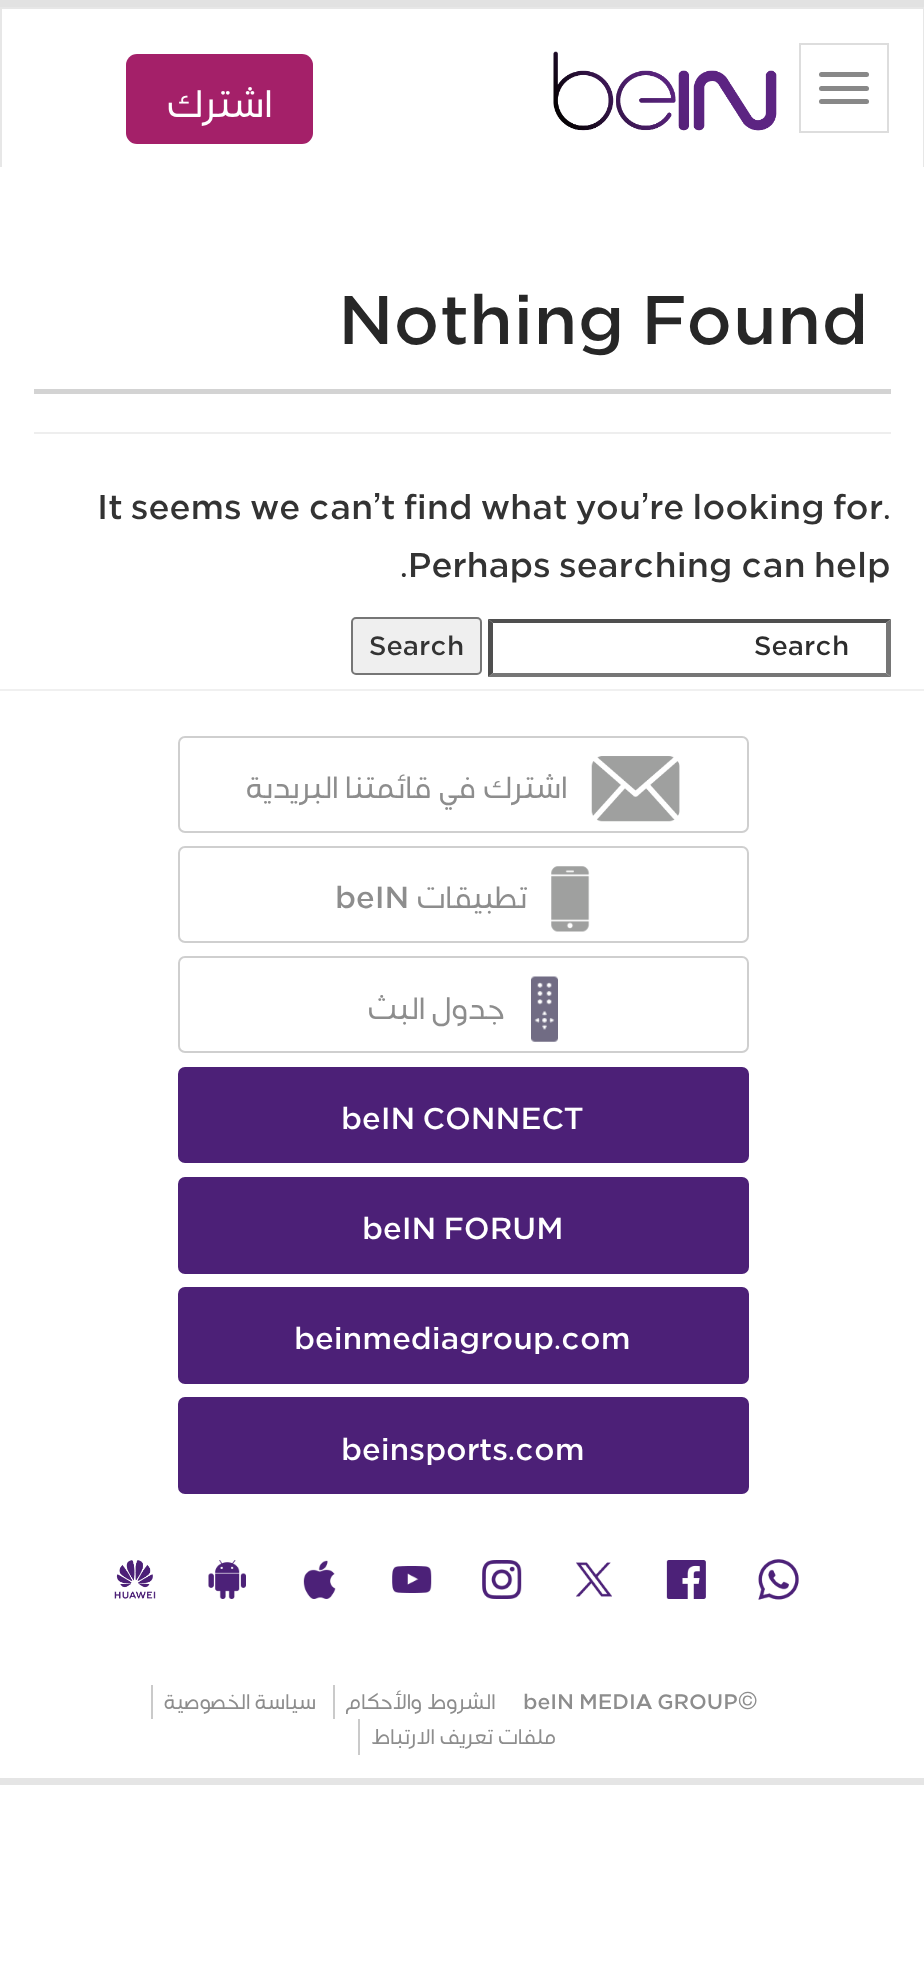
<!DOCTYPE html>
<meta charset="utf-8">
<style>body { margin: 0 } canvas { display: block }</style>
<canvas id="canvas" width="924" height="1967"></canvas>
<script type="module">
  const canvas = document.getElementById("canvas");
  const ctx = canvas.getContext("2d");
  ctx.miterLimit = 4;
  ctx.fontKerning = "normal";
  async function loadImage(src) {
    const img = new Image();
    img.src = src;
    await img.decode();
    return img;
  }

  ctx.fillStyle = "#ffffff";
  ctx.fillRect(0, 0, 924, 1967);
  ctx.fillStyle = "#e2e2e2";
  ctx.fillRect(0, 0, 924, 7);
  ctx.fillStyle = "#e7e7e7";
  ctx.fillRect(0, 7, 924, 2);
  ctx.fillRect(923, 7, 1, 160);
  ctx.fillRect(0, 7, 2, 160);
  ctx.fillStyle = "#a42069";
  ctx.beginPath();
  ctx.roundRect(126, 54, 187, 90, 11);
  ctx.fill();
  ctx.direction = "rtl";
  ctx.font = "45px 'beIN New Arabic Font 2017'";
  ctx.fillStyle = "#ffffff";
  ctx.fillText("اشترك", 273, 117);
  ctx.drawImage(await loadImage("img1.png"), 553, 51, 224, 80);
  ctx.strokeStyle = "#dddddd";
  ctx.lineWidth = 2;
  ctx.strokeRect(800, 44, 88, 88);
  ctx.fillStyle = "#888888";
  ctx.beginPath();
  ctx.roundRect(819, 72, 50, 5, 2.5);
  ctx.fill();
  ctx.beginPath();
  ctx.roundRect(819, 86, 50, 5, 2.5);
  ctx.fill();
  ctx.beginPath();
  ctx.roundRect(819, 99, 50, 5, 2.5);
  ctx.fill();
  ctx.fillStyle = "#eeeeee";
  ctx.fillRect(34, 432, 857, 2);
  ctx.fillStyle = "#d3d3d3";
  ctx.fillRect(34, 389, 857, 5);
  ctx.direction = "ltr";
  ctx.font = "81px 'beIN New Arabic Font 2017'";
  ctx.fillStyle = "#272727";
  ctx.fillText("Nothing Found", 338, 344);
  ctx.font = "40.5px 'beIN New Arabic Font 2017'";
  ctx.fillStyle = "#333333";
  ctx.fillText("It seems we can’t find what you’re looking for.", 97, 519);
  ctx.fillText(".Perhaps searching can help", 400, 577);
  ctx.fillStyle = "#efefef";
  ctx.beginPath();
  ctx.roundRect(352, 618, 129, 56, 4);
  ctx.fill();
  ctx.strokeStyle = "#767676";
  ctx.stroke();
  ctx.font = "31.5px 'beIN New Arabic Font 2017'";
  ctx.fillStyle = "#333333";
  ctx.fillText("Search", 369, 655);
  ctx.fillStyle = "#4f4f4f";
  ctx.beginPath();
  ctx.moveTo(488, 619);
  ctx.lineTo(891, 619);
  ctx.lineTo(886, 623);
  ctx.lineTo(493, 623);
  ctx.closePath();
  ctx.fill();
  ctx.fillStyle = "#767676";
  ctx.beginPath();
  ctx.moveTo(891, 619);
  ctx.lineTo(891, 677);
  ctx.lineTo(886, 673);
  ctx.lineTo(886, 623);
  ctx.closePath();
  ctx.fill();
  ctx.beginPath();
  ctx.moveTo(891, 677);
  ctx.lineTo(488, 677);
  ctx.lineTo(493, 673);
  ctx.lineTo(886, 673);
  ctx.closePath();
  ctx.fill();
  ctx.fillStyle = "#4f4f4f";
  ctx.beginPath();
  ctx.moveTo(488, 677);
  ctx.lineTo(488, 619);
  ctx.lineTo(493, 623);
  ctx.lineTo(493, 673);
  ctx.closePath();
  ctx.fill();
  ctx.fillStyle = "#2d2d2d";
  ctx.fillText("Search", 754, 655);
  ctx.fillStyle = "#f0f0f0";
  ctx.fillRect(0, 689, 924, 2);
  ctx.fillStyle = "#e5e5e5";
  ctx.fillRect(0, 1778, 924, 7);
  ctx.beginPath();
  ctx.roundRect(179, 737, 569, 95, 6);
  ctx.strokeStyle = "#cfcfcf";
  ctx.stroke();
  ctx.direction = "rtl";
  ctx.font = "36px 'beIN New Arabic Font 2017'";
  ctx.fillStyle = "#8d8d8d";
  ctx.fillText("اشترك في قائمتنا البريدية", 568, 798);
  ctx.drawImage(await loadImage("img2.png"), 591, 756, 89, 66);
  ctx.beginPath();
  ctx.roundRect(179, 847, 569, 95, 6);
  ctx.stroke();
  ctx.direction = "ltr";
  ctx.fillText("beIN", 335, 908);
  ctx.direction = "rtl";
  ctx.fillText("تطبيقات", 527, 908);
  ctx.drawImage(await loadImage("img3.png"), 551, 866, 39, 66);
  ctx.beginPath();
  ctx.roundRect(179, 957, 569, 95, 6);
  ctx.stroke();
  ctx.fillText("جدول البث", 505, 1019);
  ctx.drawImage(await loadImage("img4.png"), 531, 976, 27, 66);
  ctx.fillStyle = "#4c2077";
  ctx.beginPath();
  ctx.roundRect(179, 1068, 569, 94, 6);
  ctx.fill();
  ctx.strokeStyle = "#4c2077";
  ctx.stroke();
  ctx.direction = "ltr";
  ctx.fillStyle = "#ffffff";
  ctx.fillText("beIN CONNECT", 341, 1129);
  ctx.fillStyle = "#4c2077";
  ctx.beginPath();
  ctx.roundRect(179, 1178, 569, 95, 6);
  ctx.fill();
  ctx.stroke();
  ctx.fillStyle = "#ffffff";
  ctx.fillText("beIN FORUM", 362, 1239);
  ctx.fillStyle = "#4c2077";
  ctx.beginPath();
  ctx.roundRect(179, 1288, 569, 95, 6);
  ctx.fill();
  ctx.stroke();
  ctx.fillStyle = "#ffffff";
  ctx.fillText("beinmediagroup.com", 294, 1349);
  ctx.fillStyle = "#4c2077";
  ctx.beginPath();
  ctx.roundRect(179, 1398, 569, 95, 6);
  ctx.fill();
  ctx.stroke();
  ctx.fillStyle = "#ffffff";
  ctx.fillText("beinsports.com", 341, 1460);
  ctx.drawImage(await loadImage("img5.png"), 114, 1560, 42, 39);
  ctx.drawImage(await loadImage("img6.png"), 208, 1560, 38, 39);
  ctx.drawImage(await loadImage("img7.png"), 303, 1560, 33, 39);
  ctx.drawImage(await loadImage("img8.png"), 392, 1566, 40, 27);
  ctx.drawImage(await loadImage("img9.png"), 482, 1560, 40, 39);
  ctx.drawImage(await loadImage("img10.png"), 576, 1562, 36, 35);
  ctx.drawImage(await loadImage("img11.png"), 666, 1560, 40, 39);
  ctx.drawImage(await loadImage("img12.png"), 758, 1559, 41, 41);
  ctx.fillStyle = "#cacaca";
  ctx.fillRect(151, 1685, 2, 34);
  ctx.direction = "rtl";
  ctx.font = "24.75px 'beIN New Arabic Font 2017'";
  ctx.fillStyle = "#8d8d8d";
  ctx.fillText("سياسة الخصوصية", 316, 1709);
  ctx.fillStyle = "#cacaca";
  ctx.fillRect(333, 1685, 2, 34);
  ctx.fillStyle = "#8d8d8d";
  ctx.fillText("الشروط والأحكام", 496, 1709);
  ctx.direction = "ltr";
  ctx.fillText("beIN MEDIA GROUP©", 523, 1709);
  ctx.fillStyle = "#cacaca";
  ctx.fillRect(358, 1719, 2, 36);
  ctx.direction = "rtl";
  ctx.fillStyle = "#8d8d8d";
  ctx.fillText("ملفات تعريف الارتباط", 556, 1744);
</script>
